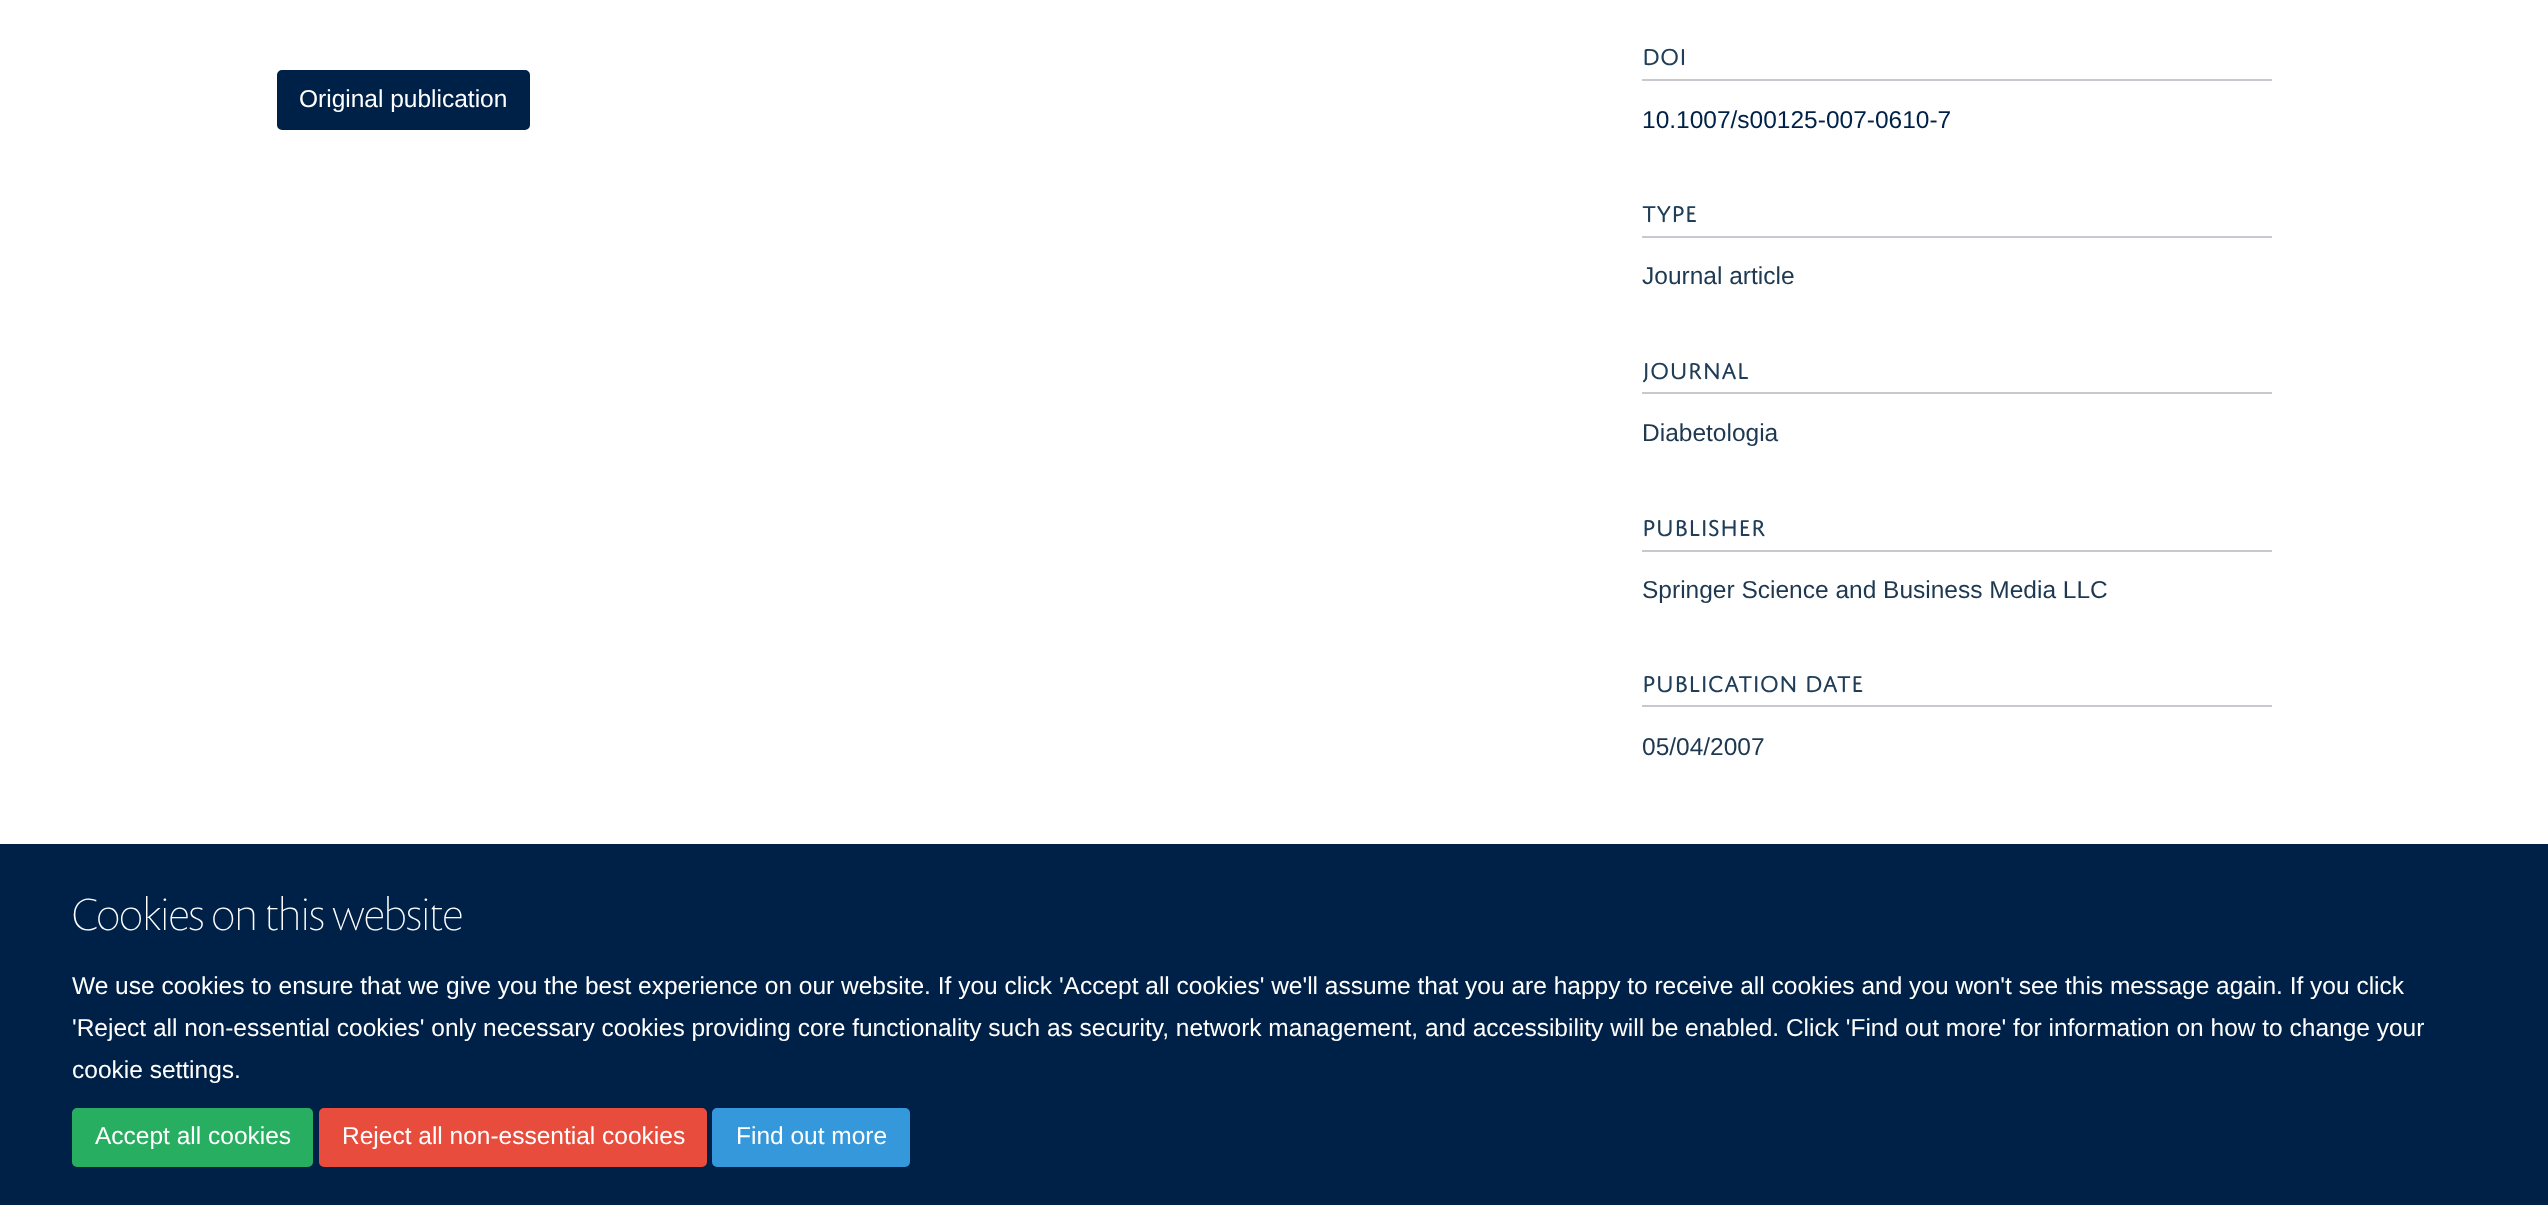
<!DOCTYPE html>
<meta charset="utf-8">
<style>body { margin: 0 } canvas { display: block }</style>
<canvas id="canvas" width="2548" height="1205"></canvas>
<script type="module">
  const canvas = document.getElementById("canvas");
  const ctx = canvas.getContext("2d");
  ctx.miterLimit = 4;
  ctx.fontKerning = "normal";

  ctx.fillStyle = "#ffffff";
  ctx.fillRect(0, 0, 2548, 1205);
  ctx.fillStyle = "#002147";
  ctx.beginPath();
  ctx.roundRect(278, 71, 251, 58, 4);
  ctx.fill();
  ctx.strokeStyle = "#002147";
  ctx.lineWidth = 2;
  ctx.stroke();
  ctx.font = "24.5px Liberation Sans";
  ctx.fillStyle = "#ffffff";
  ctx.fillText("Original publication", 299, 107);
  ctx.fillStyle = "#c6cacf";
  ctx.fillRect(1642, 79, 630, 2);
  ctx.font = "24.5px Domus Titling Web";
  ctx.fillStyle = "#203e58";
  ctx.fillText("DOI", 1642, 65);
  ctx.font = "24.5px Liberation Sans";
  ctx.fillStyle = "#002147";
  ctx.fillText("10.1007/s00125-007-0610-7", 1642, 128);
  ctx.fillStyle = "#c6cacf";
  ctx.fillRect(1642, 236, 630, 2);
  ctx.font = "24.5px Domus Titling Web";
  ctx.fillStyle = "#203e58";
  ctx.fillText("TYPE", 1642, 222);
  ctx.font = "24.5px Liberation Sans";
  ctx.fillStyle = "#1d3850";
  ctx.fillText("Journal article", 1642, 284);
  ctx.fillStyle = "#c6cacf";
  ctx.fillRect(1642, 392, 630, 2);
  ctx.font = "24.5px Domus Titling Web";
  ctx.fillStyle = "#203e58";
  ctx.fillText("JOURNAL", 1642, 379);
  ctx.font = "24.5px Liberation Sans";
  ctx.fillStyle = "#1d3850";
  ctx.fillText("Diabetologia", 1642, 441);
  ctx.fillStyle = "#c6cacf";
  ctx.fillRect(1642, 550, 630, 2);
  ctx.font = "24.5px Domus Titling Web";
  ctx.fillStyle = "#203e58";
  ctx.fillText("PUBLISHER", 1642, 536);
  ctx.font = "24.5px Liberation Sans";
  ctx.fillStyle = "#1d3850";
  ctx.fillText("Springer Science and Business Media LLC", 1642, 598);
  ctx.fillStyle = "#c6cacf";
  ctx.fillRect(1642, 705, 630, 2);
  ctx.font = "24.5px Domus Titling Web";
  ctx.fillStyle = "#203e58";
  ctx.fillText("PUBLICATION DATE", 1642, 692);
  ctx.font = "24.5px Liberation Sans";
  ctx.fillStyle = "#1d3850";
  ctx.fillText("05/04/2007", 1642, 755);
  ctx.fillStyle = "#002147";
  ctx.fillRect(0, 844, 2548, 361);
  ctx.font = "100 45.5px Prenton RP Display";
  ctx.fillStyle = "#ffffff";
  ctx.fillText("Cookies on this website", 72, 930);
  ctx.font = "24.5px Liberation Sans";
  ctx.fillText("We use cookies to ensure that we give you the best experience on our website. If you click 'Accept all cookies' we'll assume that you are happy to receive all cookies and you won't see this message again. If you click", 72, 994);
  ctx.fillText("'Reject all non-essential cookies' only necessary cookies providing core functionality such as security, network management, and accessibility will be enabled. Click 'Find out more' for information on how to change your", 72, 1036);
  ctx.fillText("cookie settings.", 72, 1078);
  ctx.fillStyle = "#27ae60";
  ctx.beginPath();
  ctx.roundRect(73, 1109, 239, 57, 4);
  ctx.fill();
  ctx.strokeStyle = "#27ae60";
  ctx.stroke();
  ctx.fillStyle = "#ffffff";
  ctx.fillText("Accept all cookies", 95, 1144);
  ctx.fillStyle = "#e74c3c";
  ctx.beginPath();
  ctx.roundRect(320, 1109, 386, 57, 4);
  ctx.fill();
  ctx.strokeStyle = "#e74c3c";
  ctx.stroke();
  ctx.fillStyle = "#ffffff";
  ctx.fillText("Reject all non-essential cookies", 342, 1144);
  ctx.fillStyle = "#3498db";
  ctx.beginPath();
  ctx.roundRect(713, 1109, 196, 57, 4);
  ctx.fill();
  ctx.strokeStyle = "#3498db";
  ctx.stroke();
  ctx.fillStyle = "#ffffff";
  ctx.fillText("Find out more", 736, 1144);
</script>
